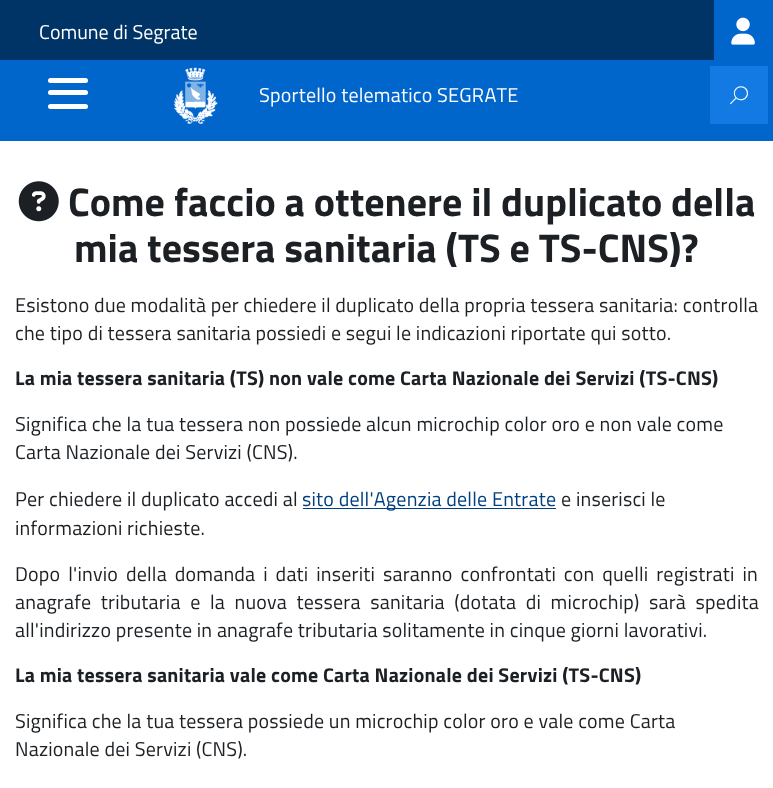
<!DOCTYPE html>
<meta charset="utf-8">
<style>body { margin: 0 } canvas { display: block }</style>
<canvas id="canvas" width="773" height="788"></canvas>
<script type="module">
  const canvas = document.getElementById("canvas");
  const ctx = canvas.getContext("2d");
  ctx.miterLimit = 4;
  ctx.fontKerning = "none";
  async function loadImage(src) {
    const img = new Image();
    img.src = src;
    await img.decode();
    return img;
  }

  ctx.fillStyle = "#ffffff";
  ctx.fillRect(0, 0, 773, 788);
  ctx.fillStyle = "#003366";
  ctx.fillRect(0, 0, 714, 60);
  ctx.font = "20px Titillium Web";
  ctx.fillStyle = "#ffffff";
  ctx.fillText("Comune di Segrate", 39, 39);
  ctx.fillStyle = "#0066cc";
  ctx.fillRect(714, 0, 59, 60);
  ctx.drawImage(await loadImage("img1.png"), 731, 17, 24, 28);
  ctx.fillRect(0, 60, 773, 81);
  ctx.fillStyle = "#ffffff";
  ctx.beginPath();
  ctx.roundRect(48, 90, 40, 5, 2.5);
  ctx.fill();
  ctx.beginPath();
  ctx.roundRect(48, 78, 40, 5, 2.5);
  ctx.fill();
  ctx.beginPath();
  ctx.roundRect(48, 104, 40, 5, 2.5);
  ctx.fill();
  ctx.drawImage(await loadImage("img2.png"), 173, 67, 45, 57);
  ctx.letterSpacing = "0.2px";
  ctx.fillText("Sportello telematico SEGRATE", 259, 102);
  ctx.fillStyle = "#127ae2";
  ctx.fillRect(710, 66, 58, 58);
  ctx.letterSpacing = "0px";
  ctx.font = "18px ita";
  ctx.fillStyle = "#ffffff";
  ctx.fillText("🔍", 730, 103);
  ctx.drawImage(await loadImage("img3.png"), 18, 181, 41, 41);
  ctx.font = "bold 40px Titillium Web";
  ctx.fillStyle = "#1c2024";
  ctx.fillText("Come faccio a ottenere il duplicato della", 68, 216);
  ctx.fillText("mia tessera sanitaria (TS e TS-CNS)?", 74, 262);
  ctx.letterSpacing = "0.2px";
  ctx.font = "20px Titillium Web";
  ctx.fillText("Esistono due modalità per chiedere il duplicato della propria tessera sanitaria: controlla", 15, 312);
  ctx.fillText("che tipo di tessera sanitaria possiedi e segui le indicazioni riportate qui sotto.", 15, 340);
  ctx.font = "bold 20px Titillium Web";
  ctx.fillText("La mia tessera sanitaria (TS) non vale come Carta Nazionale dei Servizi (TS-CNS)", 15, 385);
  ctx.font = "20px Titillium Web";
  ctx.fillText("Significa che la tua tessera non possiede alcun microchip color oro e non vale come", 15, 431);
  ctx.fillText("Carta Nazionale dei Servizi (CNS).", 15, 459);
  ctx.fillText("Per chiedere il duplicato accedi al", 15, 506);
  ctx.fillStyle = "#004080";
  ctx.fillRect(303, 508, 253, 1);
  ctx.fillText("sito dell'Agenzia delle Entrate", 302, 506);
  ctx.fillStyle = "#1c2024";
  ctx.fillText("e inserisci le", 561, 506);
  ctx.fillText("informazioni richieste.", 15, 535);
  ctx.wordSpacing = "3.25px";
  ctx.fillText("Dopo l'invio della domanda i dati inseriti saranno confrontati con quelli registrati in", 15, 581);
  ctx.wordSpacing = "4.9px";
  ctx.fillText("anagrafe tributaria e la nuova tessera sanitaria (dotata di microchip) sarà spedita", 15, 609);
  ctx.wordSpacing = "0px";
  ctx.fillText("all'indirizzo presente in anagrafe tributaria solitamente in cinque giorni lavorativi.", 15, 637);
  ctx.font = "bold 20px Titillium Web";
  ctx.fillText("La mia tessera sanitaria vale come Carta Nazionale dei Servizi (TS-CNS)", 15, 682);
  ctx.font = "20px Titillium Web";
  ctx.fillText("Significa che la tua tessera possiede un microchip color oro e vale come Carta", 15, 728);
  ctx.fillText("Nazionale dei Servizi (CNS).", 15, 756);
</script>
